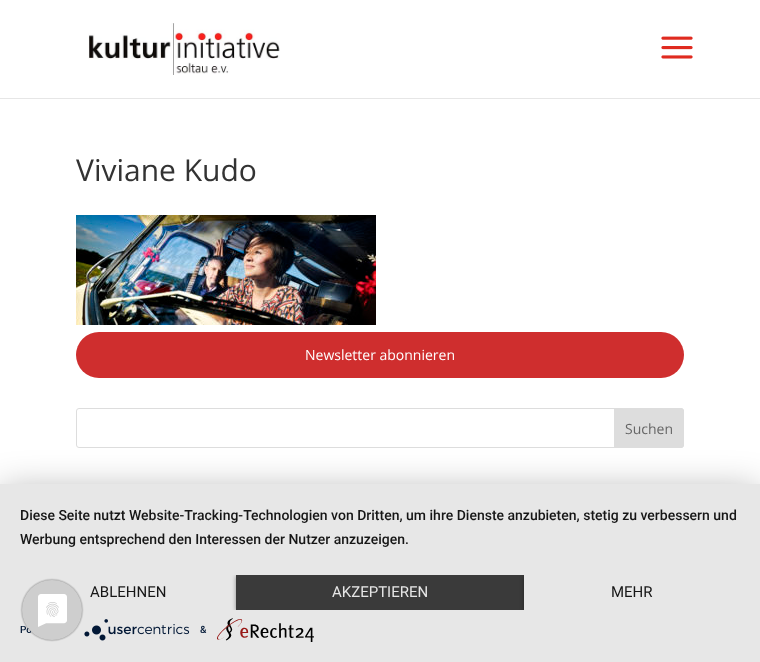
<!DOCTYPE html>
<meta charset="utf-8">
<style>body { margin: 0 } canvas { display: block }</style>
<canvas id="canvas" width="760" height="662"></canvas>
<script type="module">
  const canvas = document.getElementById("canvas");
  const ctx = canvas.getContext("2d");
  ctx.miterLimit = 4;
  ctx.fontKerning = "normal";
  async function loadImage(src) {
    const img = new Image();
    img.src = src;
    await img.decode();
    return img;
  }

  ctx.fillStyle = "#ffffff";
  ctx.fillRect(0, 0, 760, 662);
  ctx.fillStyle = "#e6e6e6";
  ctx.fillRect(0, 98, 760, 1);
  ctx.drawImage(await loadImage("img1.png"), 88, 23, 192, 52);
  ctx.drawImage(await loadImage("img2.png"), 661, 36, 32, 23);
  ctx.font = "30px Open Sans";
  ctx.fillStyle = "#333333";
  ctx.fillText("Viviane Kudo", 76, 181);
  ctx.drawImage(await loadImage("img3.png"), 76, 215, 300, 110);
  ctx.fillStyle = "#cf2e2e";
  ctx.beginPath();
  ctx.roundRect(76, 332, 608, 46, 23);
  ctx.fill();
  ctx.font = "14px Open Sans";
  ctx.fillStyle = "#ffffff";
  ctx.fillText("Newsletter abonnieren", 305, 360);
  ctx.beginPath();
  ctx.roundRect(76.5, 408.5, 607, 39, 2.5);
  ctx.strokeStyle = "#dddddd";
  ctx.stroke();
  ctx.fillStyle = "#dddddd";
  ctx.beginPath();
  ctx.roundRect(614.5, 408.5, 69, 39, [0, 2.5, 2.5, 0]);
  ctx.fill();
  ctx.stroke();
  ctx.fillStyle = "#666666";
  ctx.fillText("Suchen", 625, 434);
  ctx.fillStyle = "rgba(0, 0, 0, 0.3)";
  ctx.filter = "blur(18px)";
  ctx.beginPath();
  ctx.rect(0, 490, 760, 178);
  ctx.fill();
  ctx.filter = "none";
  ctx.fillStyle = "#e7e7e7";
  ctx.fillRect(0, 484, 760, 178);
  ctx.font = "500 14px Roboto";
  ctx.fillStyle = "#161616";
  ctx.fillText("Diese Seite nutzt Website-Tracking-Technologien von Dritten, um ihre Dienste anzubieten, stetig zu verbessern und", 20, 520);
  ctx.fillText("Werbung entsprechend den Interessen der Nutzer anzuzeigen.", 20, 544);
  ctx.font = "15px Roboto";
  ctx.fillText("ABLEHNEN", 90, 597);
  ctx.save();
  ctx.beginPath();
  ctx.rect(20, 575, 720, 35);
  ctx.clip();
  ctx.fillStyle = "rgba(0, 0, 0, 0.4)";
  ctx.filter = "blur(2px)";
  ctx.beginPath();
  ctx.rect(236, 576, 288, 35);
  ctx.fill();
  ctx.filter = "none";
  ctx.restore();
  ctx.fillStyle = "#3a3a3a";
  ctx.fillRect(236, 575, 288, 35);
  ctx.fillStyle = "#e6e6e6";
  ctx.fillText("AKZEPTIEREN", 332, 597);
  ctx.save();
  ctx.beginPath();
  ctx.rect(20, 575, 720, 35);
  ctx.clip();
  ctx.fillStyle = "rgba(0, 0, 0, 0.4)";
  ctx.filter = "blur(2px)";
  ctx.beginPath();
  ctx.rect(524, 576, 216, 35);
  ctx.fill();
  ctx.filter = "none";
  ctx.restore();
  ctx.fillStyle = "#e7e7e7";
  ctx.fillRect(524, 575, 216, 35);
  ctx.fillStyle = "#161616";
  ctx.fillText("MEHR", 611, 597);
  ctx.font = "500 10px Roboto";
  ctx.fillStyle = "#021836";
  ctx.fillText("Po", 20, 633);
  ctx.drawImage(await loadImage("img4.png"), 84, 619, 106, 22);
  ctx.fillText("&", 200, 633);
  ctx.drawImage(await loadImage("img5.png"), 217, 618, 97, 24);
  ctx.drawImage(await loadImage("img6.png"), 20, 578, 64, 64);
</script>
